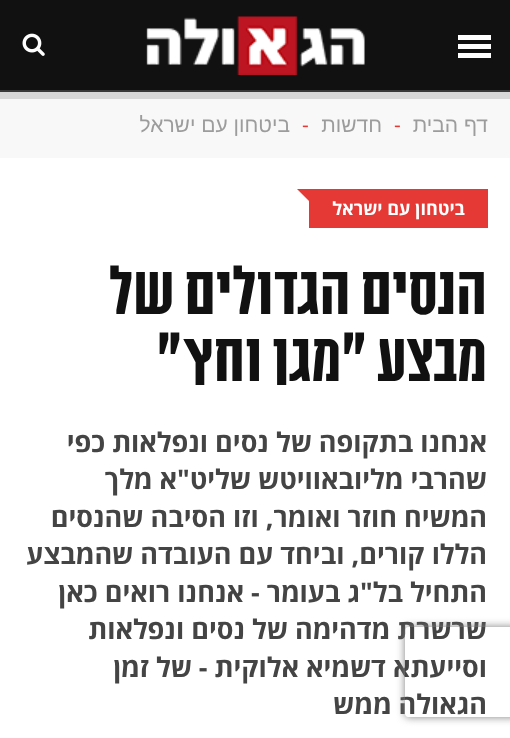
<!DOCTYPE html>
<meta charset="utf-8">
<style>body { margin: 0 } canvas { display: block }</style>
<canvas id="canvas" width="510" height="738"></canvas>
<script type="module">
  const canvas = document.getElementById("canvas");
  const ctx = canvas.getContext("2d");
  ctx.miterLimit = 4;
  ctx.fontKerning = "normal";
  async function loadImage(src) {
    const img = new Image();
    img.src = src;
    await img.decode();
    return img;
  }

  ctx.fillStyle = "#f8f8f8";
  ctx.fillRect(0, 0, 510, 738);
  ctx.fillStyle = "#3a3a3a";
  ctx.fillRect(0, 90, 510, 2);
  ctx.fillStyle = "#111111";
  ctx.fillRect(0, 0, 510, 90);
  ctx.drawImage(await loadImage("img1.png"), 146, 16, 219, 59);
  ctx.fillStyle = "#ffffff";
  ctx.fillRect(458, 35, 33, 5);
  ctx.fillRect(458, 44, 33, 5);
  ctx.fillRect(458, 53, 33, 5);
  ctx.fillStyle = "#d8d8d8";
  ctx.fillRect(0, 92, 510, 7);
  ctx.drawImage(await loadImage("img2.png"), 22, 33, 23, 23);
  ctx.direction = "rtl";
  ctx.font = "21px Liberation Sans";
  ctx.fillStyle = "#9d9c9c";
  ctx.fillText("דף הבית", 488, 132);
  ctx.direction = "ltr";
  ctx.font = "21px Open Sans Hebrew";
  ctx.fillStyle = "#e53935";
  ctx.fillText("-", 394, 132);
  ctx.direction = "rtl";
  ctx.font = "21px Liberation Sans";
  ctx.fillStyle = "#9d9c9c";
  ctx.fillText("חדשות", 382, 132);
  ctx.direction = "ltr";
  ctx.font = "21px Open Sans Hebrew";
  ctx.fillStyle = "#e53935";
  ctx.fillText("-", 302, 132);
  ctx.direction = "rtl";
  ctx.font = "21px Liberation Sans";
  ctx.fillStyle = "#9d9c9c";
  ctx.fillText("ביטחון עם ישראל", 290, 132);
  ctx.fillStyle = "#ffffff";
  ctx.fillRect(0, 158, 510, 580);
  ctx.fillStyle = "#e53935";
  ctx.fillRect(309, 189, 179, 39);
  ctx.beginPath();
  ctx.moveTo(297, 189);
  ctx.lineTo(309, 189);
  ctx.lineTo(309, 201);
  ctx.closePath();
  ctx.fill();
  ctx.font = "bold 18px Open Sans Hebrew";
  ctx.fillStyle = "#ffffff";
  ctx.fillText("ביטחון עם ישראל", 465, 215);
  ctx.font = "600 72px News";
  ctx.fillStyle = "#111111";
  ctx.fillText("הנסים הגדולים של", 487, 314);
  ctx.fillText("מבצע \"מגן וחץ\"", 487, 381);
  ctx.font = "bold 27px Open Sans Hebrew";
  ctx.fillStyle = "#444444";
  ctx.fillText("אנחנו בתקופה של נסים ונפלאות כפי", 487, 452);
  ctx.fillText("שהרבי מליובאוויטש שליט\"א מלך", 487, 489);
  ctx.fillText("המשיח חוזר ואומר, וזו הסיבה שהנסים", 487, 527);
  ctx.fillText("הללו קורים, וביחד עם העובדה שהמבצע", 487, 564);
  ctx.fillText("התחיל בל\"ג בעומר - אנחנו רואים כאן", 487, 602);
  ctx.fillText("שרשרת מדהימה של נסים ונפלאות", 487, 639);
  ctx.fillText("וסייעתא דשמיא אלוקית - של זמן", 487, 677);
  ctx.fillText("הגאולה ממש", 487, 714);
  ctx.save();
  ctx.beginPath();
  ctx.moveTo(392, 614);
  ctx.lineTo(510, 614);
  ctx.lineTo(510, 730);
  ctx.lineTo(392, 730);
  ctx.closePath();
  ctx.moveTo(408, 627);
  ctx.lineTo(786, 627);
  ctx.bezierCurveTo(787.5, 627, 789, 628.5, 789, 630);
  ctx.lineTo(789, 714);
  ctx.bezierCurveTo(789, 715.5, 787.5, 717, 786, 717);
  ctx.lineTo(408, 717);
  ctx.bezierCurveTo(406.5, 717, 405, 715.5, 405, 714);
  ctx.lineTo(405, 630);
  ctx.bezierCurveTo(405, 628.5, 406.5, 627, 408, 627);
  ctx.closePath();
  ctx.clip("evenodd");
  ctx.fillStyle = "#808080";
  ctx.filter = "blur(4px)";
  ctx.beginPath();
  ctx.roundRect(405, 627, 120, 90, 3);
  ctx.fill();
  ctx.filter = "none";
  ctx.restore();
</script>
